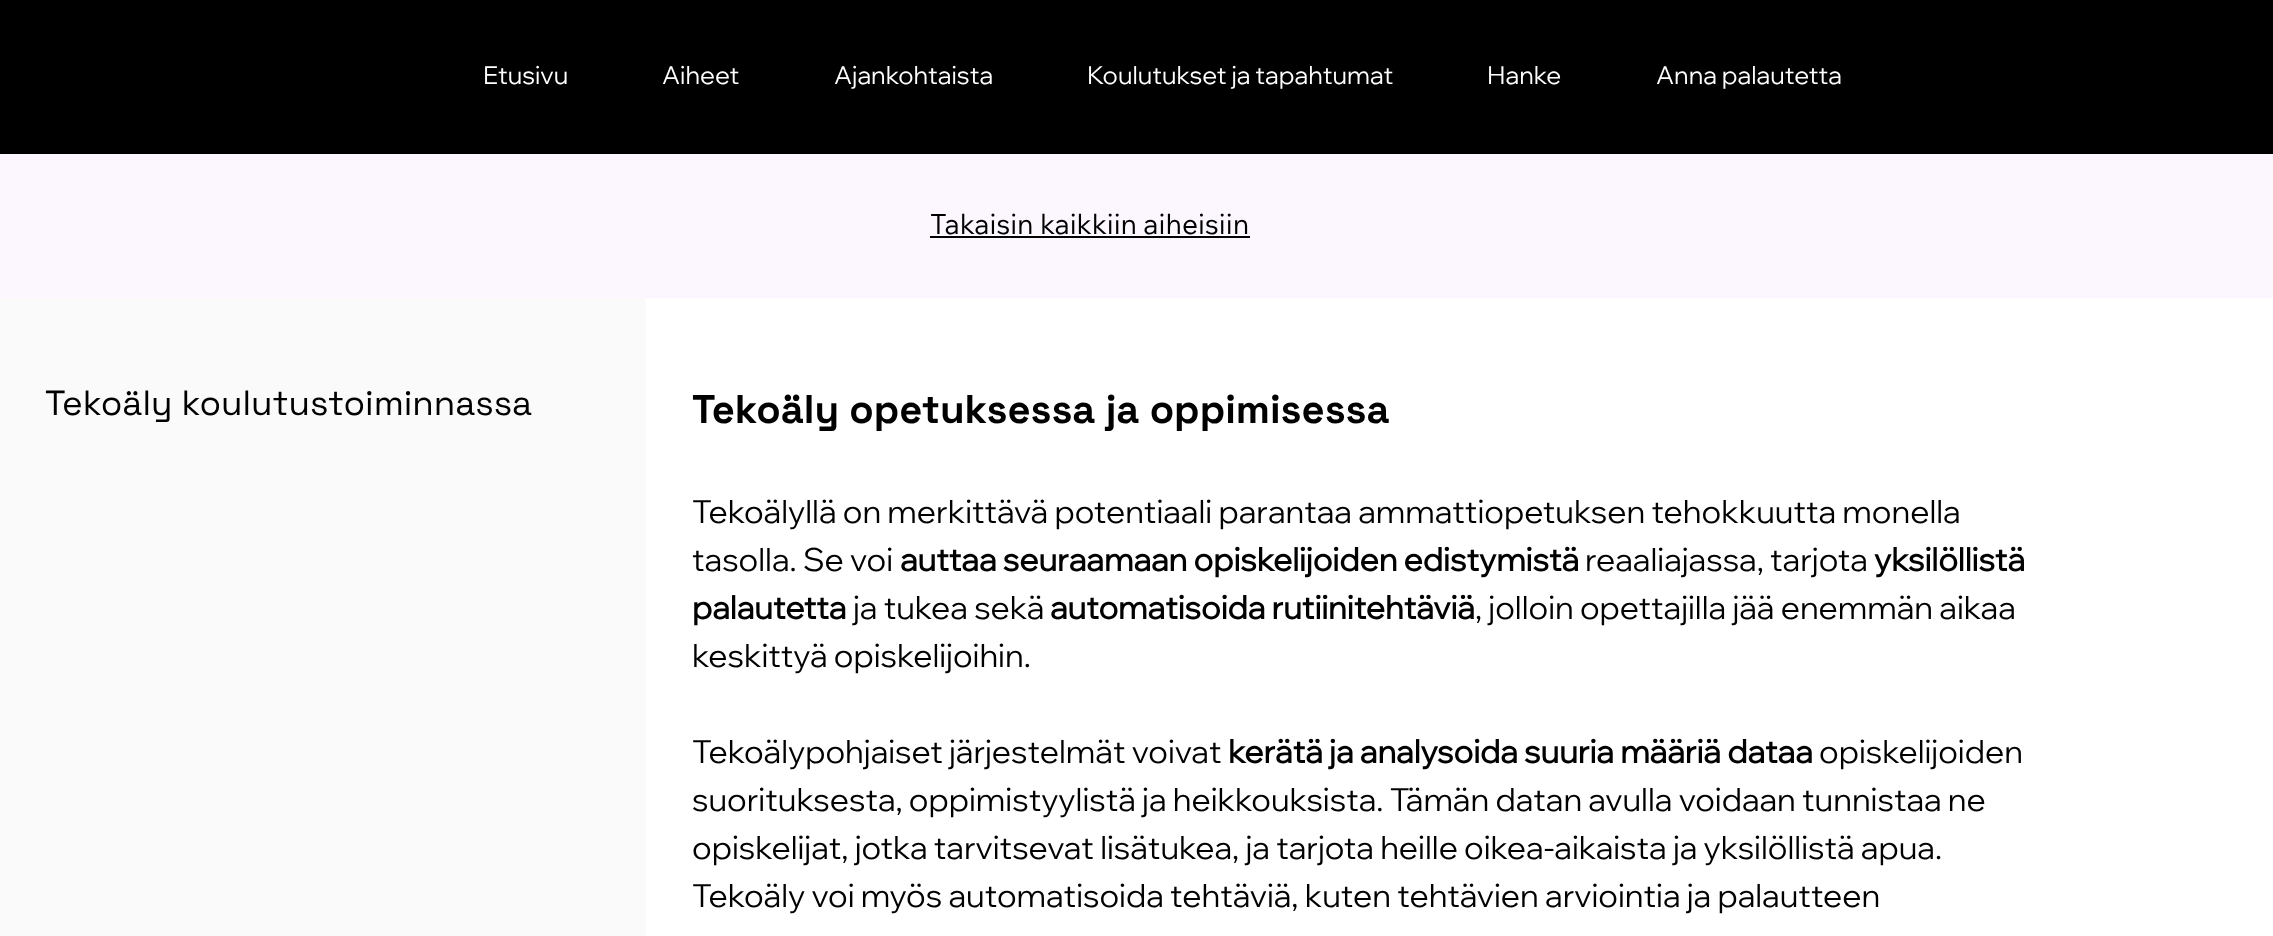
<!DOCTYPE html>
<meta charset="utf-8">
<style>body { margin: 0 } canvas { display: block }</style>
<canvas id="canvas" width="2273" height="936"></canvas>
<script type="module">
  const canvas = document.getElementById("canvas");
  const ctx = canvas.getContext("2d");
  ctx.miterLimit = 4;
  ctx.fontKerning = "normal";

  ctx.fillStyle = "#ffffff";
  ctx.fillRect(0, 0, 2273, 936);
  ctx.fillStyle = "#000000";
  ctx.fillRect(0, 0, 2273, 154);
  ctx.font = "24.9px Wix Madefor Display";
  ctx.fillStyle = "#ffffff";
  ctx.fillText("Etusivu", 483, 84);
  ctx.fillText("Aiheet", 662, 84);
  ctx.fillText("Ajankohtaista", 834, 84);
  ctx.fillText("Koulutukset ja tapahtumat", 1087, 84);
  ctx.fillText("Hanke", 1487, 84);
  ctx.fillText("Anna palautetta", 1656, 84);
  ctx.fillStyle = "#fcf6ff";
  ctx.fillRect(0, 154, 2273, 144);
  ctx.font = "28px Wix Madefor Text";
  ctx.fillStyle = "#000000";
  ctx.fillText("Takaisin kaikkiin aiheisiin", 930, 234);
  ctx.fillRect(930, 236, 320, 2);
  ctx.fillStyle = "#fafafa";
  ctx.fillRect(0, 298, 646, 638);
  ctx.font = "35px Space Grotesk";
  ctx.fillStyle = "#000000";
  ctx.fillText("Tekoäly koulutustoiminnassa", 45, 415);
  ctx.font = "bold 40px Space Grotesk";
  ctx.fillText("Tekoäly opetuksessa ja oppimisessa", 692, 423);
  ctx.font = "32px Wix Madefor Display";
  ctx.fillText("Tekoälyllä on merkittävä potentiaali parantaa ammattiopetuksen tehokkuutta monella", 692, 523);
  ctx.fillText("tasolla. Se voi", 692, 571);
  ctx.font = "bold 32px Wix Madefor Display";
  ctx.fillText("auttaa seuraamaan opiskelijoiden edistymistä", 900, 571);
  ctx.font = "32px Wix Madefor Display";
  ctx.fillText("reaaliajassa, tarjota", 1585, 571);
  ctx.font = "bold 32px Wix Madefor Display";
  ctx.fillText("yksilöllistä", 1874, 571);
  ctx.fillText("palautetta", 692, 619);
  ctx.font = "32px Wix Madefor Display";
  ctx.fillText("ja tukea sekä", 853, 619);
  ctx.font = "bold 32px Wix Madefor Display";
  ctx.fillText("automatisoida rutiinitehtäviä", 1050, 619);
  ctx.font = "32px Wix Madefor Display";
  ctx.fillText(", jolloin opettajilla jää enemmän aikaa", 1475, 619);
  ctx.fillText("keskittyä opiskelijoihin.", 692, 667);
  ctx.fillText("Tekoälypohjaiset järjestelmät voivat", 692, 763);
  ctx.font = "bold 32px Wix Madefor Display";
  ctx.fillText("kerätä ja analysoida suuria määriä dataa", 1228, 763);
  ctx.font = "32px Wix Madefor Display";
  ctx.fillText("opiskelijoiden", 1819, 763);
  ctx.fillText("suorituksesta, oppimistyylistä ja heikkouksista. Tämän datan avulla voidaan tunnistaa ne", 692, 811);
  ctx.fillText("opiskelijat, jotka tarvitsevat lisätukea, ja tarjota heille oikea-aikaista ja yksilöllistä apua.", 692, 859);
  ctx.fillText("Tekoäly voi myös automatisoida tehtäviä, kuten tehtävien arviointia ja palautteen", 692, 907);
</script>
